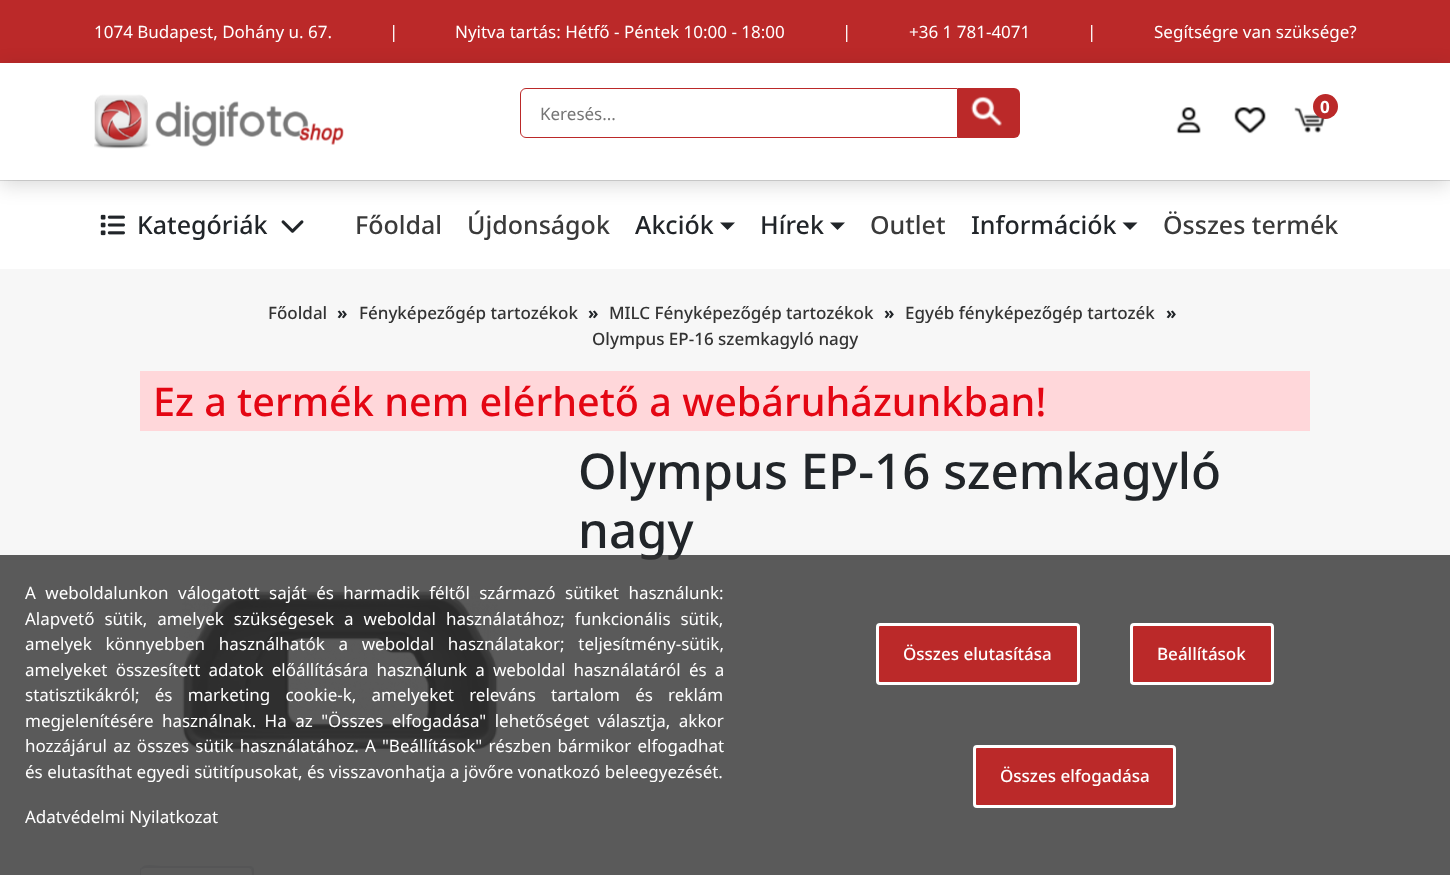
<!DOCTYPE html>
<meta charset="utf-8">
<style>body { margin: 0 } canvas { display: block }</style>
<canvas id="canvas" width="1450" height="875"></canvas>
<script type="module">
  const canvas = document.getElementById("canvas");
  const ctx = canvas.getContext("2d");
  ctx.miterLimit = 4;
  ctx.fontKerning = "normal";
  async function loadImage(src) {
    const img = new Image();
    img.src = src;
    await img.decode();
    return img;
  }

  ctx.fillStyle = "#ffffff";
  ctx.fillRect(0, 0, 1450, 875);
  ctx.fillStyle = "#bb2929";
  ctx.fillRect(0, 0, 1450, 63);
  ctx.font = "17px Noto Sans";
  ctx.fillStyle = "#ffffff";
  ctx.fillText("1074 Budapest, Dohány u. 67.", 94, 38);
  ctx.fillText("|", 389, 38);
  ctx.fillText("Nyitva tartás: Hétfő - Péntek 10:00 - 18:00", 455, 38);
  ctx.fillText("|", 842, 38);
  ctx.fillText("+36 1 781-4071", 909, 38);
  ctx.fillText("|", 1087, 38);
  ctx.fillText("Segítségre van szüksége?", 1154, 38);
  ctx.fillStyle = "#dddddd";
  ctx.fillRect(0, 180, 1450, 1);
  ctx.drawImage(await loadImage("img6.png"), 100, 214, 25, 22);
  ctx.save();
  ctx.beginPath();
  ctx.moveTo(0, 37);
  ctx.lineTo(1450, 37);
  ctx.lineTo(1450, 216);
  ctx.lineTo(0, 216);
  ctx.closePath();
  ctx.moveTo(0, 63);
  ctx.lineTo(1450, 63);
  ctx.lineTo(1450, 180);
  ctx.lineTo(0, 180);
  ctx.closePath();
  ctx.clip("evenodd");
  ctx.fillStyle = "rgba(0, 0, 0, 0.15)";
  ctx.filter = "blur(10px)";
  ctx.beginPath();
  ctx.rect(0, 68, 1450, 117);
  ctx.fill();
  ctx.filter = "none";
  ctx.restore();
  ctx.drawImage(await loadImage("img1.png"), 94, 94, 250, 55);
  ctx.beginPath();
  ctx.roundRect(520.5, 88.5, 437, 49, [5.5, 0, 0, 5.5]);
  ctx.strokeStyle = "#bb2929";
  ctx.stroke();
  ctx.fillStyle = "#757575";
  ctx.fillText("Keresés...", 540, 120);
  ctx.fillStyle = "#bb2929";
  ctx.beginPath();
  ctx.roundRect(958, 88, 62, 50, [0, 6, 6, 0]);
  ctx.fill();
  ctx.drawImage(await loadImage("img2.png"), 970, 96, 32, 30);
  ctx.drawImage(await loadImage("img3.png"), 1176, 107, 25, 27);
  ctx.drawImage(await loadImage("img4.png"), 1234, 107, 32, 27);
  ctx.drawImage(await loadImage("img5.png"), 1294, 107, 31, 26);
  ctx.beginPath();
  ctx.arc(1325.5, 106.5, 12.5, 0, Math.PI * 2);
  ctx.fill();
  ctx.font = "bold 17px Noto Sans";
  ctx.fillStyle = "#ffffff";
  ctx.fillText("0", 1320, 113);
  ctx.font = "500 25px Noto Sans";
  ctx.fillStyle = "#212529";
  ctx.fillText("Kategóriák", 137, 234);
  ctx.drawImage(await loadImage("img7.png"), 281, 220, 23, 13);
  ctx.fillStyle = "#3a3a3a";
  ctx.fillText("Főoldal", 355, 234);
  ctx.fillText("Újdonságok", 467, 234);
  ctx.fillStyle = "#212529";
  ctx.fillText("Akciók", 635, 234);
  ctx.beginPath();
  ctx.moveTo(720, 222.5);
  ctx.lineTo(735, 222.5);
  ctx.lineTo(727.5, 230);
  ctx.closePath();
  ctx.fill();
  ctx.fillText("Hírek", 760, 234);
  ctx.beginPath();
  ctx.moveTo(830, 222.5);
  ctx.lineTo(845, 222.5);
  ctx.lineTo(837.5, 230);
  ctx.closePath();
  ctx.fill();
  ctx.fillStyle = "#3a3a3a";
  ctx.fillText("Outlet", 870, 234);
  ctx.fillStyle = "#212529";
  ctx.fillText("Információk", 971, 234);
  ctx.beginPath();
  ctx.moveTo(1122.5, 222.5);
  ctx.lineTo(1137.5, 222.5);
  ctx.lineTo(1130, 230);
  ctx.closePath();
  ctx.fill();
  ctx.fillStyle = "#3a3a3a";
  ctx.fillText("Összes termék", 1163, 234);
  ctx.fillStyle = "#f7f7f7";
  ctx.fillRect(0, 269, 1450, 606);
  ctx.font = "500 17px Noto Sans";
  ctx.fillStyle = "#333333";
  ctx.fillText("Főoldal", 268, 319);
  ctx.font = "bold 17px Noto Sans";
  ctx.fillStyle = "#212529";
  ctx.fillText("»", 337, 319);
  ctx.font = "500 17px Noto Sans";
  ctx.fillStyle = "#333333";
  ctx.fillText("Fényképezőgép tartozékok", 359, 319);
  ctx.font = "bold 17px Noto Sans";
  ctx.fillStyle = "#212529";
  ctx.fillText("»", 588, 319);
  ctx.font = "500 17px Noto Sans";
  ctx.fillStyle = "#333333";
  ctx.fillText("MILC Fényképezőgép tartozékok", 609, 319);
  ctx.font = "bold 17px Noto Sans";
  ctx.fillStyle = "#212529";
  ctx.fillText("»", 884, 319);
  ctx.font = "500 17px Noto Sans";
  ctx.fillStyle = "#333333";
  ctx.fillText("Egyéb fényképezőgép tartozék", 905, 319);
  ctx.font = "bold 17px Noto Sans";
  ctx.fillStyle = "#212529";
  ctx.fillText("»", 1166, 319);
  ctx.font = "500 17px Noto Sans";
  ctx.fillStyle = "#333333";
  ctx.fillText("Olympus EP-16 szemkagyló nagy", 592, 345);
  ctx.fillStyle = "#ffd7da";
  ctx.fillRect(140, 371, 1170, 60);
  ctx.font = "500 39.55px Noto Sans";
  ctx.fillStyle = "#e40613";
  ctx.fillText("Ez a termék nem elérhető a webáruházunkban!", 153, 416);
  ctx.font = "500 49.25px Noto Sans";
  ctx.fillStyle = "#212529";
  ctx.fillText("Olympus EP-16 szemkagyló", 578, 489);
  ctx.fillText("nagy", 578, 548);
  ctx.drawImage(await loadImage("img8.png"), 182, 590, 316, 161);
  ctx.fillStyle = "#ffffff";
  ctx.beginPath();
  ctx.moveTo(145, 866);
  ctx.lineTo(249, 866);
  ctx.bezierCurveTo(252, 866, 254, 868, 254, 871);
  ctx.lineTo(254, 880);
  ctx.lineTo(140, 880);
  ctx.lineTo(140, 871);
  ctx.bezierCurveTo(140, 868, 142, 866, 145, 866);
  ctx.closePath();
  ctx.fill();
  ctx.fillStyle = "#dee2e6";
  ctx.beginPath();
  ctx.moveTo(145, 868);
  ctx.lineTo(142, 869);
  ctx.lineTo(141, 868);
  ctx.bezierCurveTo(146, 863, 154, 866, 161, 866);
  ctx.lineTo(251, 866);
  ctx.lineTo(253, 867);
  ctx.lineTo(251, 869);
  ctx.lineTo(249, 868);
  ctx.closePath();
  ctx.fill();
  ctx.beginPath();
  ctx.moveTo(254, 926);
  ctx.lineTo(252, 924);
  ctx.bezierCurveTo(252, 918, 253, 871, 251, 869);
  ctx.lineTo(253, 867);
  ctx.lineTo(254, 869);
  ctx.closePath();
  ctx.fill();
  ctx.beginPath();
  ctx.moveTo(140, 871);
  ctx.lineTo(140, 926);
  ctx.lineTo(141, 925);
  ctx.lineTo(141, 870);
  ctx.lineTo(142, 869);
  ctx.lineTo(141, 868);
  ctx.bezierCurveTo(140, 868, 140, 870, 140, 871);
  ctx.closePath();
  ctx.fill();
  ctx.fillStyle = "rgba(50, 50, 50, 0.8)";
  ctx.fillRect(0, 555, 1450, 320);
  ctx.wordSpacing = "5px";
  ctx.font = "17px Noto Sans";
  ctx.fillStyle = "#ffffff";
  ctx.fillText("A weboldalunkon válogatott saját és harmadik féltől származó sütiket használunk:", 25, 599);
  ctx.wordSpacing = "5.5px";
  ctx.fillText("Alapvető sütik, amelyek szükségesek a weboldal használatához; funkcionális sütik,", 25, 625);
  ctx.wordSpacing = "9.25px";
  ctx.fillText("amelyek könnyebben használhatók a weboldal használatakor; teljesítmény-sütik,", 25, 650);
  ctx.wordSpacing = "3.75px";
  ctx.fillText("amelyeket összesített adatok előállítására használunk a weboldal használatáról és a", 25, 676);
  ctx.wordSpacing = "10.75px";
  ctx.fillText("statisztikákról; és marketing cookie-k, amelyeket releváns tartalom és reklám", 25, 701);
  ctx.wordSpacing = "4px";
  ctx.fillText("megjelenítésére használnak. Ha az \"Összes elfogadása\" lehetőséget választja, akkor", 25, 727);
  ctx.wordSpacing = "1.75px";
  ctx.fillText("hozzájárul az összes sütik használatához. A \"Beállítások\" részben bármikor elfogadhat", 25, 752);
  ctx.wordSpacing = "0px";
  ctx.fillText("és elutasíthat egyedi sütitípusokat, és visszavonhatja a jövőre vonatkozó beleegyezését.", 25, 778);
  ctx.fillText("Adatvédelmi Nyilatkozat", 25, 823);
  ctx.fillStyle = "#bb2929";
  ctx.beginPath();
  ctx.roundRect(877.5, 624.5, 201, 59, 2.5);
  ctx.fill();
  ctx.strokeStyle = "#ffffff";
  ctx.lineWidth = 3;
  ctx.stroke();
  ctx.font = "500 17px Noto Sans";
  ctx.fillStyle = "#ffffff";
  ctx.fillText("Összes elutasítása", 903, 660);
  ctx.fillStyle = "#bb2929";
  ctx.beginPath();
  ctx.roundRect(1131.5, 624.5, 141, 59, 2.5);
  ctx.fill();
  ctx.stroke();
  ctx.fillStyle = "#ffffff";
  ctx.fillText("Beállítások", 1157, 660);
  ctx.fillStyle = "#bb2929";
  ctx.beginPath();
  ctx.roundRect(974.5, 746.5, 200, 60, 2.5);
  ctx.fill();
  ctx.stroke();
  ctx.fillStyle = "#ffffff";
  ctx.fillText("Összes elfogadása", 1000, 782);
</script>
